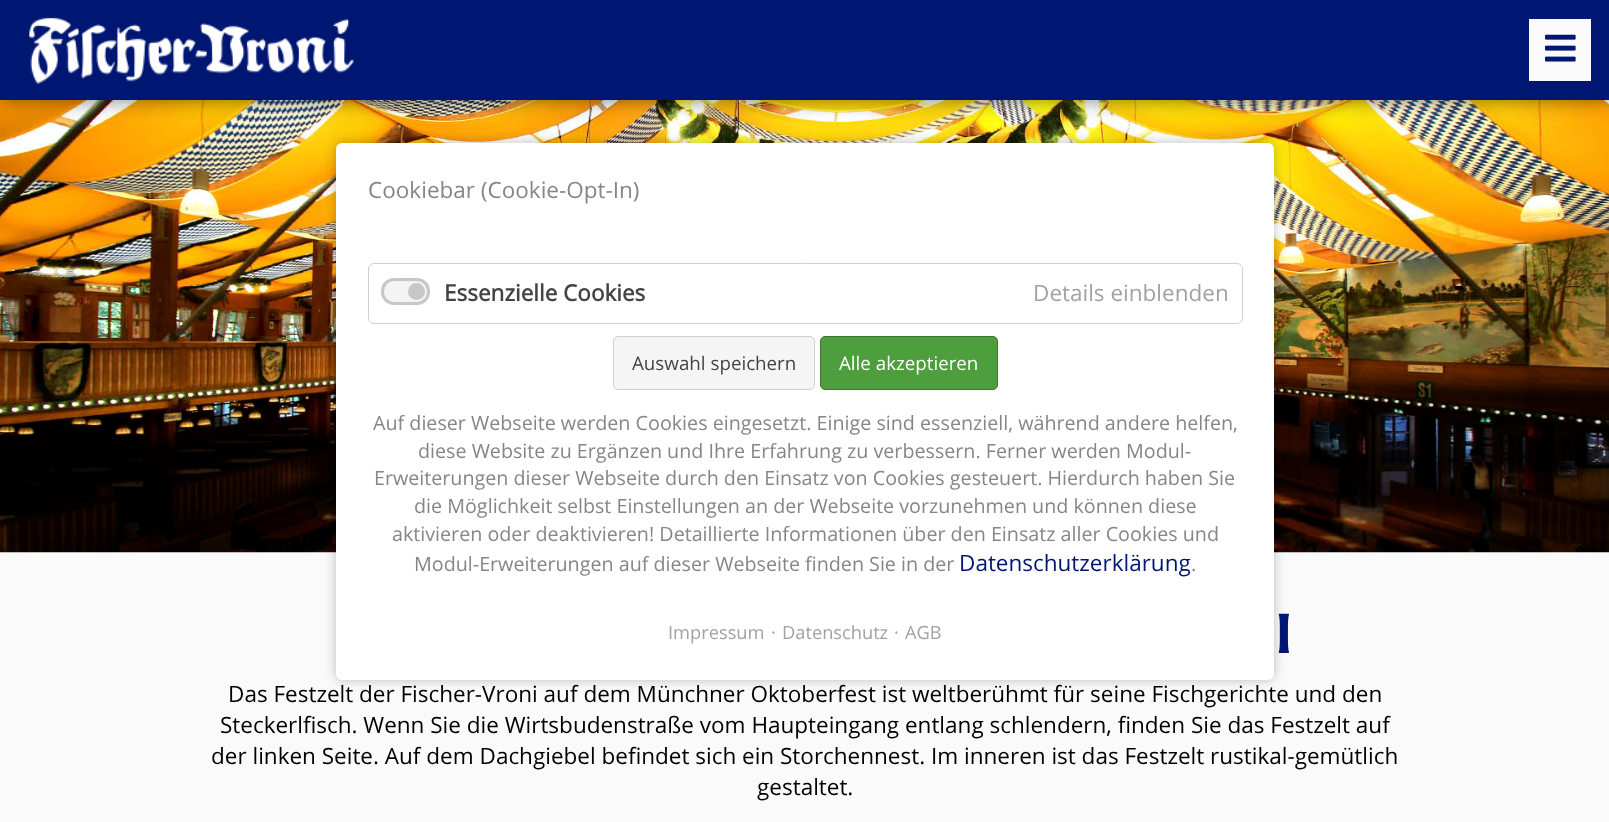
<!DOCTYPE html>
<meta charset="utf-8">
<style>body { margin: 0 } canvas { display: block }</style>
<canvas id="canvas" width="1609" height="822"></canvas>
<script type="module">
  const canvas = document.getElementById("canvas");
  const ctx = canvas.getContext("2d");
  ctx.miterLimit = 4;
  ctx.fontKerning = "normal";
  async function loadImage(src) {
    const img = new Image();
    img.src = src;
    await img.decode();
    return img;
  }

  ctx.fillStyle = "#fafafa";
  ctx.fillRect(0, 0, 1609, 822);
  ctx.drawImage(await loadImage("img3.png"), 0, 100, 1609, 453);
  ctx.fillStyle = "rgba(0, 0, 0, 0.25)";
  ctx.filter = "blur(6px)";
  ctx.beginPath();
  ctx.roundRect(336, 143, 938, 537, 6);
  ctx.fill();
  ctx.filter = "none";
  ctx.fillStyle = "#ffffff";
  ctx.beginPath();
  ctx.roundRect(336, 143, 938, 537, 6);
  ctx.fill();
  ctx.font = "22.5px Open Sans";
  ctx.fillStyle = "#868686";
  ctx.fillText("Cookiebar (Cookie-Opt-In)", 368, 198);
  ctx.beginPath();
  ctx.roundRect(368.5, 263.5, 874, 60, 5.5);
  ctx.strokeStyle = "#d0d0d0";
  ctx.stroke();
  ctx.fillStyle = "#f4f4f4";
  ctx.beginPath();
  ctx.roundRect(382.5, 279.5, 46, 24, 11.5);
  ctx.fill();
  ctx.strokeStyle = "#c8c7c5";
  ctx.lineWidth = 3;
  ctx.stroke();
  ctx.fillStyle = "#c8c7c5";
  ctx.beginPath();
  ctx.arc(416.5, 291.5, 8.5, 0, Math.PI * 2);
  ctx.fill();
  ctx.font = "bold 22.5px Open Sans";
  ctx.fillStyle = "#444444";
  ctx.fillText("Essenzielle Cookies", 444, 301);
  ctx.font = "22.5px Open Sans";
  ctx.fillStyle = "#a2a2a2";
  ctx.fillText("Details einblenden", 1033, 301);
  ctx.fillStyle = "#f5f5f5";
  ctx.beginPath();
  ctx.roundRect(613.5, 336.5, 201, 53, 4.5);
  ctx.fill();
  ctx.strokeStyle = "#cfcfcf";
  ctx.lineWidth = 1;
  ctx.stroke();
  ctx.font = "18.75px Open Sans";
  ctx.fillStyle = "#444444";
  ctx.fillText("Auswahl speichern", 632, 370);
  ctx.fillStyle = "#4e9e3e";
  ctx.beginPath();
  ctx.roundRect(820.5, 336.5, 177, 53, 4.5);
  ctx.fill();
  ctx.strokeStyle = "#3e7830";
  ctx.stroke();
  ctx.fillStyle = "#ffffff";
  ctx.fillText("Alle akzeptieren", 839, 370);
  ctx.font = "19.7px Open Sans";
  ctx.fillStyle = "#868686";
  ctx.fillText("Auf dieser Webseite werden Cookies eingesetzt. Einige sind essenziell, während andere helfen,", 373, 430);
  ctx.fillText("diese Website zu Ergänzen und Ihre Erfahrung zu verbessern. Ferner werden Modul-", 418, 458);
  ctx.fillText("Erweiterungen dieser Webseite durch den Einsatz von Cookies gesteuert. Hierdurch haben Sie", 374, 485);
  ctx.fillText("die Möglichkeit selbst Einstellungen an der Webseite vorzunehmen und können diese", 414, 513);
  ctx.fillText("aktivieren oder deaktivieren! Detaillierte Informationen über den Einsatz aller Cookies und", 392, 541);
  ctx.fillText("Modul-Erweiterungen auf dieser Webseite finden Sie in der", 414, 571);
  ctx.font = "22.5px Open Sans";
  ctx.fillStyle = "#001673";
  ctx.fillText("Datenschutzerklärung", 959, 571);
  ctx.font = "19.7px Open Sans";
  ctx.fillStyle = "#868686";
  ctx.fillText(".", 1191, 571);
  ctx.font = "18.25px Open Sans";
  ctx.fillStyle = "#a2a2a2";
  ctx.fillText("Impressum", 668, 639);
  ctx.fillText("·", 771, 639);
  ctx.fillText("Datenschutz", 782, 639);
  ctx.fillText("·", 894, 639);
  ctx.fillText("AGB", 905, 639);
  ctx.fillStyle = "rgba(0, 0, 0, 0.5)";
  ctx.filter = "blur(9.5px)";
  ctx.beginPath();
  ctx.rect(0, 0, 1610, 100);
  ctx.fill();
  ctx.filter = "none";
  ctx.fillStyle = "#001673";
  ctx.fillRect(0, 0, 1609, 100);
  ctx.drawImage(await loadImage("img1.png"), 29, 17, 325, 68);
  ctx.fillStyle = "#fafafa";
  ctx.fillRect(1529, 19, 62, 62);
  ctx.drawImage(await loadImage("img2.png"), 1545, 34, 31, 28);
  ctx.font = "bold 71px Marcellus SC";
  ctx.fillStyle = "#001673";
  ctx.fillText("i", 1274, 653);
  ctx.font = "22.5px Open Sans";
  ctx.fillStyle = "#000000";
  ctx.fillText("Das Festzelt der Fischer-Vroni auf dem Münchner Oktoberfest ist weltberühmt für seine Fischgerichte und den", 228, 702);
  ctx.fillText("Steckerlfisch. Wenn Sie die Wirtsbudenstraße vom Haupteingang entlang schlendern, finden Sie das Festzelt auf", 220, 733);
  ctx.fillText("der linken Seite. Auf dem Dachgiebel befindet sich ein Storchennest. Im inneren ist das Festzelt rustikal-gemütlich", 211, 764);
  ctx.fillText("gestaltet.", 757, 795);
</script>
